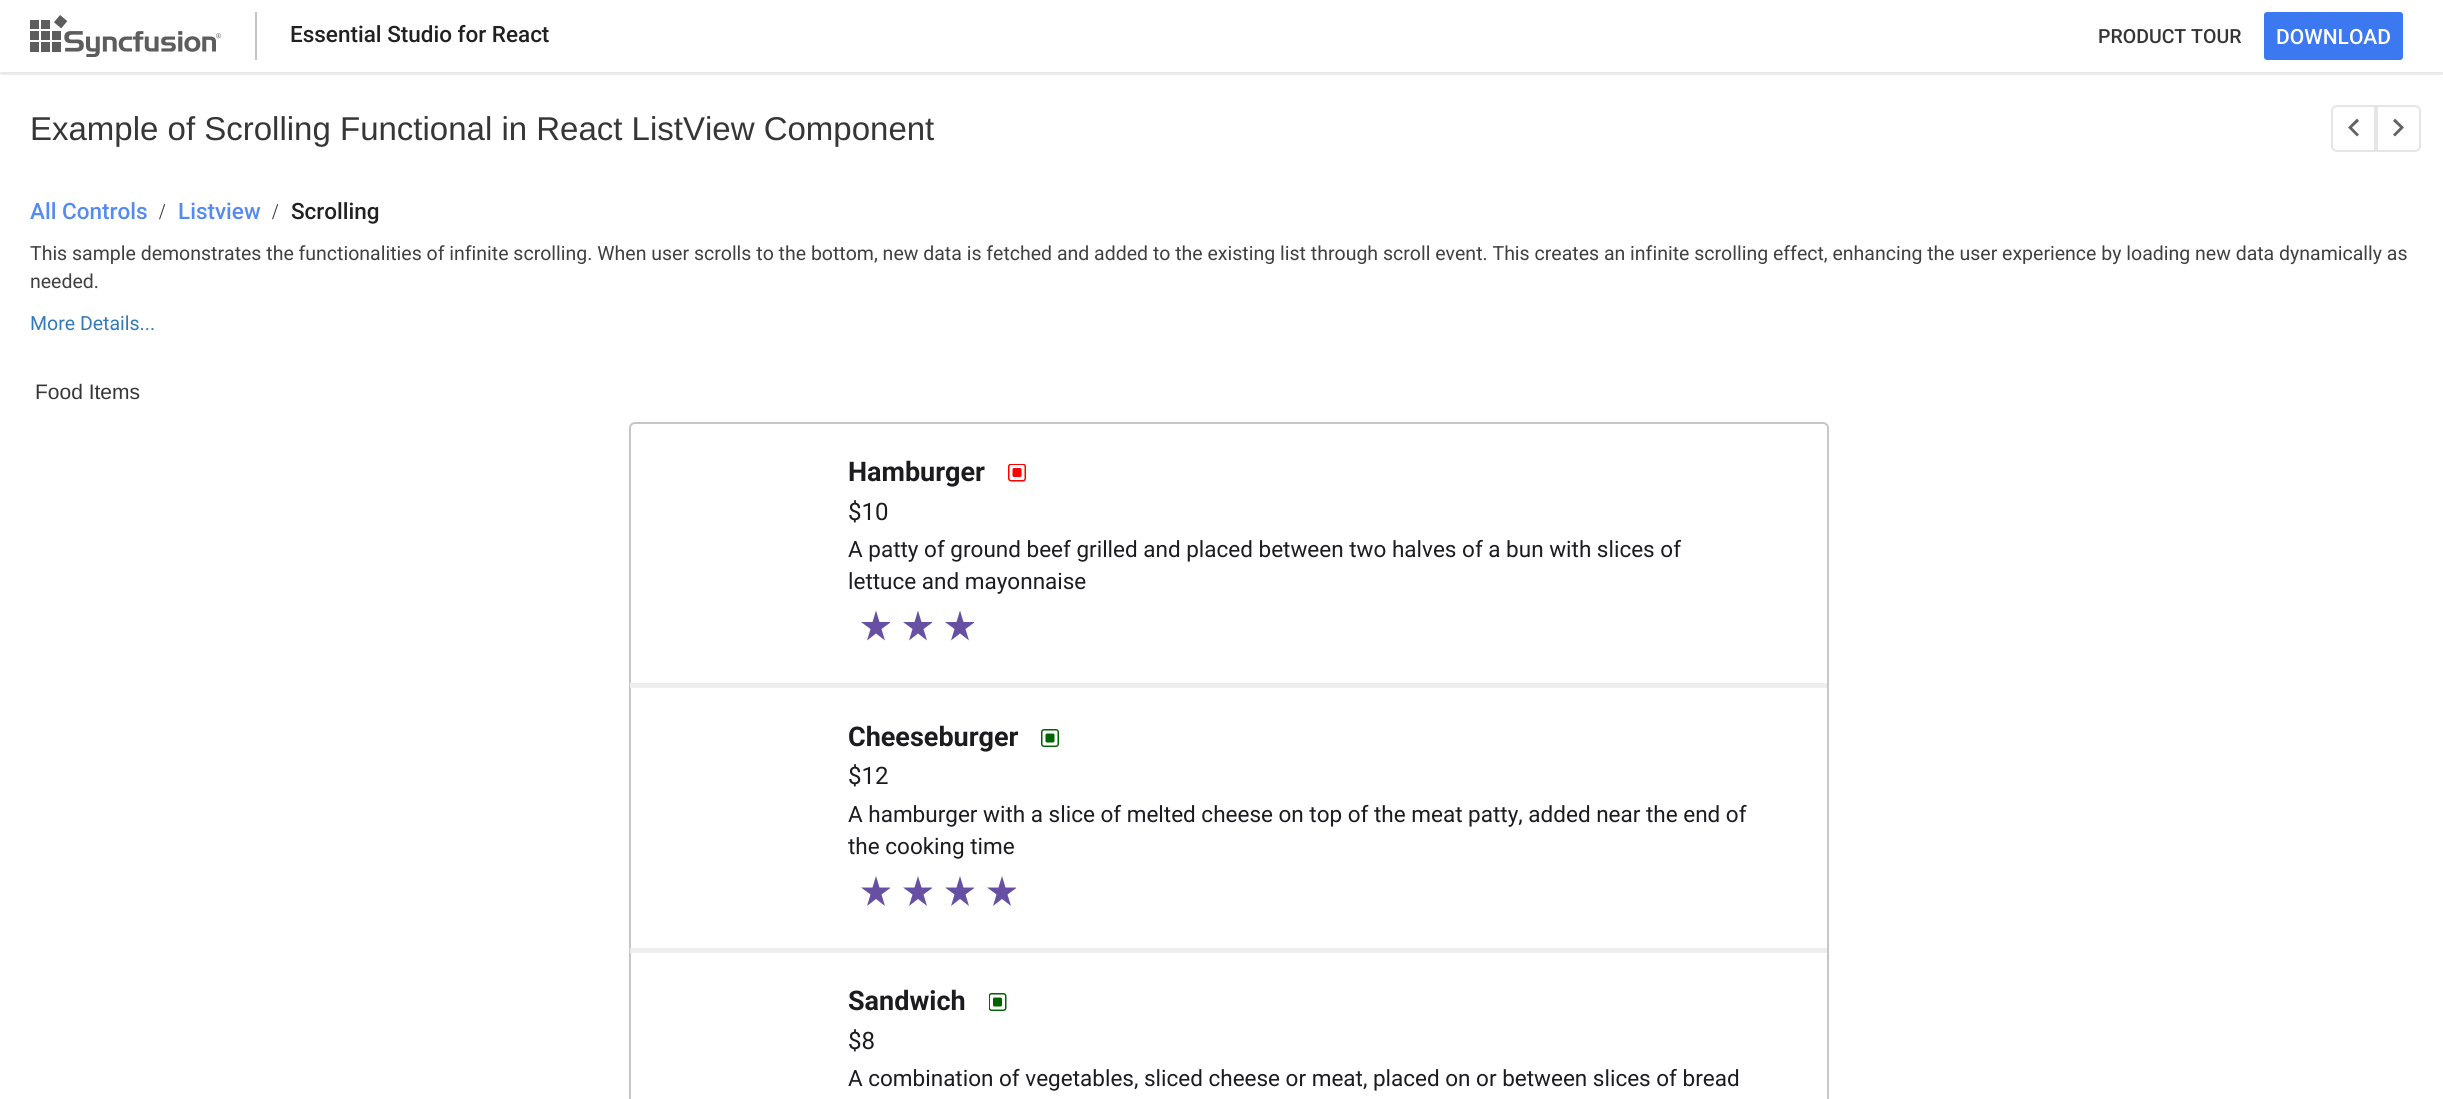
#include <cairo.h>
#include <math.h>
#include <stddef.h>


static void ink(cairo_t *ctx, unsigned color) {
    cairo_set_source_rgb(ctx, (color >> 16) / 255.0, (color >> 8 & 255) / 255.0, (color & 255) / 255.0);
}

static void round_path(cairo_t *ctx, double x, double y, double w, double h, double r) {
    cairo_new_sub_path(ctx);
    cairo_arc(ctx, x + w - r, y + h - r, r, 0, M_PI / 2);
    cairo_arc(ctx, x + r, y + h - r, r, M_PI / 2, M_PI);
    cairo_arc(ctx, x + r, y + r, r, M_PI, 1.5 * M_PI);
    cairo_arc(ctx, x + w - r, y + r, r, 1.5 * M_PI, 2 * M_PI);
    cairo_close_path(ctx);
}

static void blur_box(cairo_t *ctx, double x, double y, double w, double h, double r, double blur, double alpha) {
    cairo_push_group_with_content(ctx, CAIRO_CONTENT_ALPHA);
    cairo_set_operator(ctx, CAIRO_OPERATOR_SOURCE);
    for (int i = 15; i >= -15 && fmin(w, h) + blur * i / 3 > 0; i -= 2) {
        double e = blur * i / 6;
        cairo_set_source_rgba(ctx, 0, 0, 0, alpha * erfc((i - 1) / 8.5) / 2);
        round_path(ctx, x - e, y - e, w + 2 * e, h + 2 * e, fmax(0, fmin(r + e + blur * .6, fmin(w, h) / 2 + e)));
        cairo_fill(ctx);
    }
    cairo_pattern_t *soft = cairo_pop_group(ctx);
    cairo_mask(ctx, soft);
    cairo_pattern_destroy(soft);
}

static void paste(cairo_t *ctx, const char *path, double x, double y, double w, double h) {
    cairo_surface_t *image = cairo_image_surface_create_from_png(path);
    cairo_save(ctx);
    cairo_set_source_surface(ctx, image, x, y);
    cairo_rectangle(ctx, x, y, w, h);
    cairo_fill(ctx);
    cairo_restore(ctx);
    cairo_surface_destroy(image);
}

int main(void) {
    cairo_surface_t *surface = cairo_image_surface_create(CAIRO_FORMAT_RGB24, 2443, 1099);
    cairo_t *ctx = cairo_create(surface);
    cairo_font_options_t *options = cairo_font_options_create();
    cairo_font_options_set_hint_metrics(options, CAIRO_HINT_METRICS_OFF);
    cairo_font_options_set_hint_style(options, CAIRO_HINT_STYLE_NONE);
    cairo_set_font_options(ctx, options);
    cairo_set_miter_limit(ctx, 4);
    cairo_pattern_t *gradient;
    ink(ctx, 0xFFFFFF);
    cairo_paint(ctx);
    cairo_save(ctx);
    cairo_rectangle(ctx, 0, 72, 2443, 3);
    cairo_clip(ctx);
    ink(ctx, 0x000000);
    blur_box(ctx, 0, 3, 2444, 72, 0, 3, 0.12);
    cairo_restore(ctx);
    paste(ctx, "media/1.png", 30, 15, 191, 42);
    ink(ctx, 0xC4C4C4);
    cairo_rectangle(ctx, 255, 12, 2, 48);
    cairo_fill(ctx);
    cairo_select_font_face(ctx, "Roboto Medium", CAIRO_FONT_SLANT_NORMAL, CAIRO_FONT_WEIGHT_NORMAL);
    cairo_set_font_size(ctx, 22.5);
    ink(ctx, 0x212121);
    cairo_move_to(ctx, 290, 42);
    cairo_show_text(ctx, "Essential Studio for React");
    cairo_set_font_size(ctx, 19.5);
    ink(ctx, 0x363636);
    cairo_move_to(ctx, 2098, 43);
    cairo_show_text(ctx, "PRODUCT TOUR");
    ink(ctx, 0x3C78EF);
    round_path(ctx, 2264, 12, 139, 48, 3);
    cairo_fill(ctx);
    cairo_set_font_size(ctx, 21);
    ink(ctx, 0xFFFFFF);
    cairo_move_to(ctx, 2276, 44);
    cairo_show_text(ctx, "DOWNLOAD");
    cairo_rectangle(ctx, 0, 75, 2443, 4);
    cairo_fill(ctx);
    cairo_select_font_face(ctx, "Liberation Sans", CAIRO_FONT_SLANT_NORMAL, CAIRO_FONT_WEIGHT_NORMAL);
    cairo_set_font_size(ctx, 33);
    ink(ctx, 0x363636);
    cairo_move_to(ctx, 30, 140);
    cairo_show_text(ctx, "Example of Scrolling Functional in React ListView Component");
    cairo_new_path(ctx);
    cairo_move_to(ctx, 2337, 106);
    cairo_line_to(ctx, 2375, 106);
    cairo_line_to(ctx, 2375, 151);
    cairo_line_to(ctx, 2337, 151);
    cairo_curve_to(ctx, 2334, 151, 2332, 149, 2332, 146);
    cairo_line_to(ctx, 2332, 111);
    cairo_curve_to(ctx, 2332, 108, 2334, 106, 2337, 106);
    cairo_close_path(ctx);
    ink(ctx, 0xE5E5E5);
    cairo_stroke(ctx);
    ink(ctx, 0x636363);
    cairo_new_path(ctx);
    cairo_move_to(ctx, 2359, 134.5);
    cairo_line_to(ctx, 2352, 127.5);
    cairo_line_to(ctx, 2359, 121);
    cairo_line_to(ctx, 2357, 118.5);
    cairo_line_to(ctx, 2348, 127.5);
    cairo_line_to(ctx, 2357, 136.5);
    cairo_close_path(ctx);
    cairo_fill(ctx);
    cairo_new_path(ctx);
    cairo_move_to(ctx, 2377, 106);
    cairo_line_to(ctx, 2415, 106);
    cairo_curve_to(ctx, 2418, 106, 2420, 108, 2420, 111);
    cairo_line_to(ctx, 2420, 146);
    cairo_curve_to(ctx, 2420, 149, 2418, 151, 2415, 151);
    cairo_line_to(ctx, 2377, 151);
    cairo_close_path(ctx);
    ink(ctx, 0xE5E5E5);
    cairo_stroke(ctx);
    ink(ctx, 0x636363);
    cairo_new_path(ctx);
    cairo_move_to(ctx, 2393, 134.5);
    cairo_line_to(ctx, 2400, 127.5);
    cairo_line_to(ctx, 2393, 121);
    cairo_line_to(ctx, 2395, 118.5);
    cairo_line_to(ctx, 2404, 127.5);
    cairo_line_to(ctx, 2395, 136.5);
    cairo_close_path(ctx);
    cairo_fill(ctx);
    cairo_select_font_face(ctx, "Roboto Medium", CAIRO_FONT_SLANT_NORMAL, CAIRO_FONT_WEIGHT_NORMAL);
    cairo_set_font_size(ctx, 22.5);
    ink(ctx, 0x558AF1);
    cairo_move_to(ctx, 30, 219);
    cairo_show_text(ctx, "All Controls");
    cairo_select_font_face(ctx, "Liberation Serif", CAIRO_FONT_SLANT_NORMAL, CAIRO_FONT_WEIGHT_NORMAL);
    ink(ctx, 0x363636);
    cairo_move_to(ctx, 159, 219);
    cairo_show_text(ctx, "/");
    cairo_select_font_face(ctx, "Roboto Medium", CAIRO_FONT_SLANT_NORMAL, CAIRO_FONT_WEIGHT_NORMAL);
    ink(ctx, 0x558AF1);
    cairo_move_to(ctx, 178, 219);
    cairo_show_text(ctx, "Listview");
    cairo_select_font_face(ctx, "Liberation Serif", CAIRO_FONT_SLANT_NORMAL, CAIRO_FONT_WEIGHT_NORMAL);
    ink(ctx, 0x363636);
    cairo_move_to(ctx, 272, 219);
    cairo_show_text(ctx, "/");
    cairo_select_font_face(ctx, "Roboto Medium", CAIRO_FONT_SLANT_NORMAL, CAIRO_FONT_WEIGHT_NORMAL);
    ink(ctx, 0x212121);
    cairo_move_to(ctx, 291, 219);
    cairo_show_text(ctx, "Scrolling");
    cairo_select_font_face(ctx, "Roboto", CAIRO_FONT_SLANT_NORMAL, CAIRO_FONT_WEIGHT_NORMAL);
    cairo_set_font_size(ctx, 19.5);
    ink(ctx, 0x404040);
    cairo_move_to(ctx, 30, 260);
    cairo_show_text(ctx, "This sample demonstrates the functionalities of infinite scrolling. When user scrolls to the bottom, new data is fetched and added to the existing list through scroll event. This creates an infinite scrolling effect, enhancing the user experience by loading new data dynamically as");
    cairo_move_to(ctx, 30, 288);
    cairo_show_text(ctx, "needed.");
    ink(ctx, 0x337AB7);
    cairo_move_to(ctx, 30, 330);
    cairo_show_text(ctx, "More Details...");
    cairo_select_font_face(ctx, "Liberation Sans", CAIRO_FONT_SLANT_NORMAL, CAIRO_FONT_WEIGHT_NORMAL);
    cairo_set_font_size(ctx, 21);
    ink(ctx, 0x363636);
    cairo_move_to(ctx, 35, 399);
    cairo_show_text(ctx, "Food Items");
    round_path(ctx, 630, 423, 1198, 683, 5);
    ink(ctx, 0xC4C7C5);
    cairo_stroke(ctx);
    ink(ctx, 0xEEEEEE);
    cairo_rectangle(ctx, 630, 683, 1197, 5);
    cairo_fill(ctx);
    cairo_select_font_face(ctx, "Roboto", CAIRO_FONT_SLANT_NORMAL, CAIRO_FONT_WEIGHT_BOLD);
    cairo_set_font_size(ctx, 27);
    ink(ctx, 0x1C1B1F);
    cairo_move_to(ctx, 848, 481);
    cairo_show_text(ctx, "Hamburger");
    paste(ctx, "media/2.png", 1008, 464, 18, 18);
    cairo_select_font_face(ctx, "Roboto", CAIRO_FONT_SLANT_NORMAL, CAIRO_FONT_WEIGHT_NORMAL);
    cairo_set_font_size(ctx, 24);
    cairo_move_to(ctx, 848, 520);
    cairo_show_text(ctx, "$10");
    cairo_set_font_size(ctx, 22.5);
    cairo_move_to(ctx, 848, 557);
    cairo_show_text(ctx, "A patty of ground beef grilled and placed between two halves of a bun with slices of");
    cairo_move_to(ctx, 848, 589);
    cairo_show_text(ctx, "lettuce and mayonnaise");
    gradient = cairo_pattern_create_linear(860, 626, 890, 626);
    cairo_pattern_add_color_stop_rgba(gradient, 1, 0.404, 0.314, 0.643, 1);
    cairo_pattern_add_color_stop_rgba(gradient, 1, 1, 1, 1, 1);
    cairo_set_source(ctx, gradient);
    cairo_pattern_destroy(gradient);
    cairo_new_path(ctx);
    cairo_move_to(ctx, 876, 610.5);
    cairo_line_to(ctx, 879.5, 622);
    cairo_line_to(ctx, 891, 622);
    cairo_line_to(ctx, 881.5, 629);
    cairo_line_to(ctx, 885, 640.5);
    cairo_line_to(ctx, 876, 633.5);
    cairo_line_to(ctx, 867, 640.5);
    cairo_line_to(ctx, 870.5, 629);
    cairo_line_to(ctx, 861, 622);
    cairo_line_to(ctx, 872.5, 622);
    cairo_close_path(ctx);
    cairo_fill(ctx);
    gradient = cairo_pattern_create_linear(902, 626, 932, 626);
    cairo_pattern_add_color_stop_rgba(gradient, 1, 0.404, 0.314, 0.643, 1);
    cairo_pattern_add_color_stop_rgba(gradient, 1, 1, 1, 1, 1);
    cairo_set_source(ctx, gradient);
    cairo_pattern_destroy(gradient);
    cairo_new_path(ctx);
    cairo_move_to(ctx, 918, 610.5);
    cairo_line_to(ctx, 921.5, 622);
    cairo_line_to(ctx, 933, 622);
    cairo_line_to(ctx, 923.5, 629);
    cairo_line_to(ctx, 927, 640.5);
    cairo_line_to(ctx, 918, 633.5);
    cairo_line_to(ctx, 909, 640.5);
    cairo_line_to(ctx, 912.5, 629);
    cairo_line_to(ctx, 903, 622);
    cairo_line_to(ctx, 914.5, 622);
    cairo_close_path(ctx);
    cairo_fill(ctx);
    gradient = cairo_pattern_create_linear(944, 626, 974, 626);
    cairo_pattern_add_color_stop_rgba(gradient, 1, 0.404, 0.314, 0.643, 1);
    cairo_pattern_add_color_stop_rgba(gradient, 1, 1, 1, 1, 1);
    cairo_set_source(ctx, gradient);
    cairo_pattern_destroy(gradient);
    cairo_new_path(ctx);
    cairo_move_to(ctx, 960, 610.5);
    cairo_line_to(ctx, 963.5, 622);
    cairo_line_to(ctx, 975, 622);
    cairo_line_to(ctx, 965.5, 629);
    cairo_line_to(ctx, 969, 640.5);
    cairo_line_to(ctx, 960, 633.5);
    cairo_line_to(ctx, 951, 640.5);
    cairo_line_to(ctx, 954.5, 629);
    cairo_line_to(ctx, 945, 622);
    cairo_line_to(ctx, 956.5, 622);
    cairo_close_path(ctx);
    cairo_fill(ctx);
    ink(ctx, 0xEEEEEE);
    cairo_rectangle(ctx, 630, 948, 1197, 5);
    cairo_fill(ctx);
    cairo_select_font_face(ctx, "Roboto", CAIRO_FONT_SLANT_NORMAL, CAIRO_FONT_WEIGHT_BOLD);
    cairo_set_font_size(ctx, 27);
    ink(ctx, 0x1C1B1F);
    cairo_move_to(ctx, 848, 746);
    cairo_show_text(ctx, "Cheeseburger");
    paste(ctx, "media/3.png", 1041, 729, 18, 18);
    cairo_select_font_face(ctx, "Roboto", CAIRO_FONT_SLANT_NORMAL, CAIRO_FONT_WEIGHT_NORMAL);
    cairo_set_font_size(ctx, 24);
    cairo_move_to(ctx, 848, 784);
    cairo_show_text(ctx, "$12");
    cairo_set_font_size(ctx, 22.5);
    cairo_move_to(ctx, 848, 822);
    cairo_show_text(ctx, "A hamburger with a slice of melted cheese on top of the meat patty, added near the end of");
    cairo_move_to(ctx, 848, 854);
    cairo_show_text(ctx, "the cooking time");
    gradient = cairo_pattern_create_linear(860, 890, 890, 890);
    cairo_pattern_add_color_stop_rgba(gradient, 1, 0.404, 0.314, 0.643, 1);
    cairo_pattern_add_color_stop_rgba(gradient, 1, 1, 1, 1, 1);
    cairo_set_source(ctx, gradient);
    cairo_pattern_destroy(gradient);
    cairo_new_path(ctx);
    cairo_move_to(ctx, 876, 876);
    cairo_line_to(ctx, 879.5, 887.5);
    cairo_line_to(ctx, 891, 887.5);
    cairo_line_to(ctx, 881.5, 894.5);
    cairo_line_to(ctx, 885, 906);
    cairo_line_to(ctx, 876, 899);
    cairo_line_to(ctx, 867, 906);
    cairo_line_to(ctx, 870.5, 894.5);
    cairo_line_to(ctx, 861, 887.5);
    cairo_line_to(ctx, 872.5, 887.5);
    cairo_close_path(ctx);
    cairo_fill(ctx);
    gradient = cairo_pattern_create_linear(902, 890, 932, 890);
    cairo_pattern_add_color_stop_rgba(gradient, 1, 0.404, 0.314, 0.643, 1);
    cairo_pattern_add_color_stop_rgba(gradient, 1, 1, 1, 1, 1);
    cairo_set_source(ctx, gradient);
    cairo_pattern_destroy(gradient);
    cairo_new_path(ctx);
    cairo_move_to(ctx, 918, 876);
    cairo_line_to(ctx, 921.5, 887.5);
    cairo_line_to(ctx, 933, 887.5);
    cairo_line_to(ctx, 923.5, 894.5);
    cairo_line_to(ctx, 927, 906);
    cairo_line_to(ctx, 918, 899);
    cairo_line_to(ctx, 909, 906);
    cairo_line_to(ctx, 912.5, 894.5);
    cairo_line_to(ctx, 903, 887.5);
    cairo_line_to(ctx, 914.5, 887.5);
    cairo_close_path(ctx);
    cairo_fill(ctx);
    gradient = cairo_pattern_create_linear(944, 890, 974, 890);
    cairo_pattern_add_color_stop_rgba(gradient, 1, 0.404, 0.314, 0.643, 1);
    cairo_pattern_add_color_stop_rgba(gradient, 1, 1, 1, 1, 1);
    cairo_set_source(ctx, gradient);
    cairo_pattern_destroy(gradient);
    cairo_new_path(ctx);
    cairo_move_to(ctx, 960, 876);
    cairo_line_to(ctx, 963.5, 887.5);
    cairo_line_to(ctx, 975, 887.5);
    cairo_line_to(ctx, 965.5, 894.5);
    cairo_line_to(ctx, 969, 906);
    cairo_line_to(ctx, 960, 899);
    cairo_line_to(ctx, 951, 906);
    cairo_line_to(ctx, 954.5, 894.5);
    cairo_line_to(ctx, 945, 887.5);
    cairo_line_to(ctx, 956.5, 887.5);
    cairo_close_path(ctx);
    cairo_fill(ctx);
    gradient = cairo_pattern_create_linear(986, 890, 1016, 890);
    cairo_pattern_add_color_stop_rgba(gradient, 1, 0.404, 0.314, 0.643, 1);
    cairo_pattern_add_color_stop_rgba(gradient, 1, 1, 1, 1, 1);
    cairo_set_source(ctx, gradient);
    cairo_pattern_destroy(gradient);
    cairo_new_path(ctx);
    cairo_move_to(ctx, 1002, 876);
    cairo_line_to(ctx, 1005.5, 887.5);
    cairo_line_to(ctx, 1017, 887.5);
    cairo_line_to(ctx, 1007.5, 894.5);
    cairo_line_to(ctx, 1011, 906);
    cairo_line_to(ctx, 1002, 899);
    cairo_line_to(ctx, 993, 906);
    cairo_line_to(ctx, 996.5, 894.5);
    cairo_line_to(ctx, 987, 887.5);
    cairo_line_to(ctx, 998.5, 887.5);
    cairo_close_path(ctx);
    cairo_fill(ctx);
    cairo_select_font_face(ctx, "Roboto", CAIRO_FONT_SLANT_NORMAL, CAIRO_FONT_WEIGHT_BOLD);
    cairo_set_font_size(ctx, 27);
    ink(ctx, 0x1C1B1F);
    cairo_move_to(ctx, 848, 1010);
    cairo_show_text(ctx, "Sandwich");
    paste(ctx, "media/4.png", 989, 993, 18, 18);
    cairo_select_font_face(ctx, "Roboto", CAIRO_FONT_SLANT_NORMAL, CAIRO_FONT_WEIGHT_NORMAL);
    cairo_set_font_size(ctx, 24);
    cairo_move_to(ctx, 848, 1049);
    cairo_show_text(ctx, "$8");
    cairo_set_font_size(ctx, 22.5);
    cairo_move_to(ctx, 848, 1086);
    cairo_show_text(ctx, "A combination of vegetables, sliced cheese or meat, placed on or between slices of bread");
    cairo_surface_write_to_png(surface, "image.png");
    cairo_font_options_destroy(options);
    cairo_destroy(ctx);
    cairo_surface_destroy(surface);
    return 0;
}
